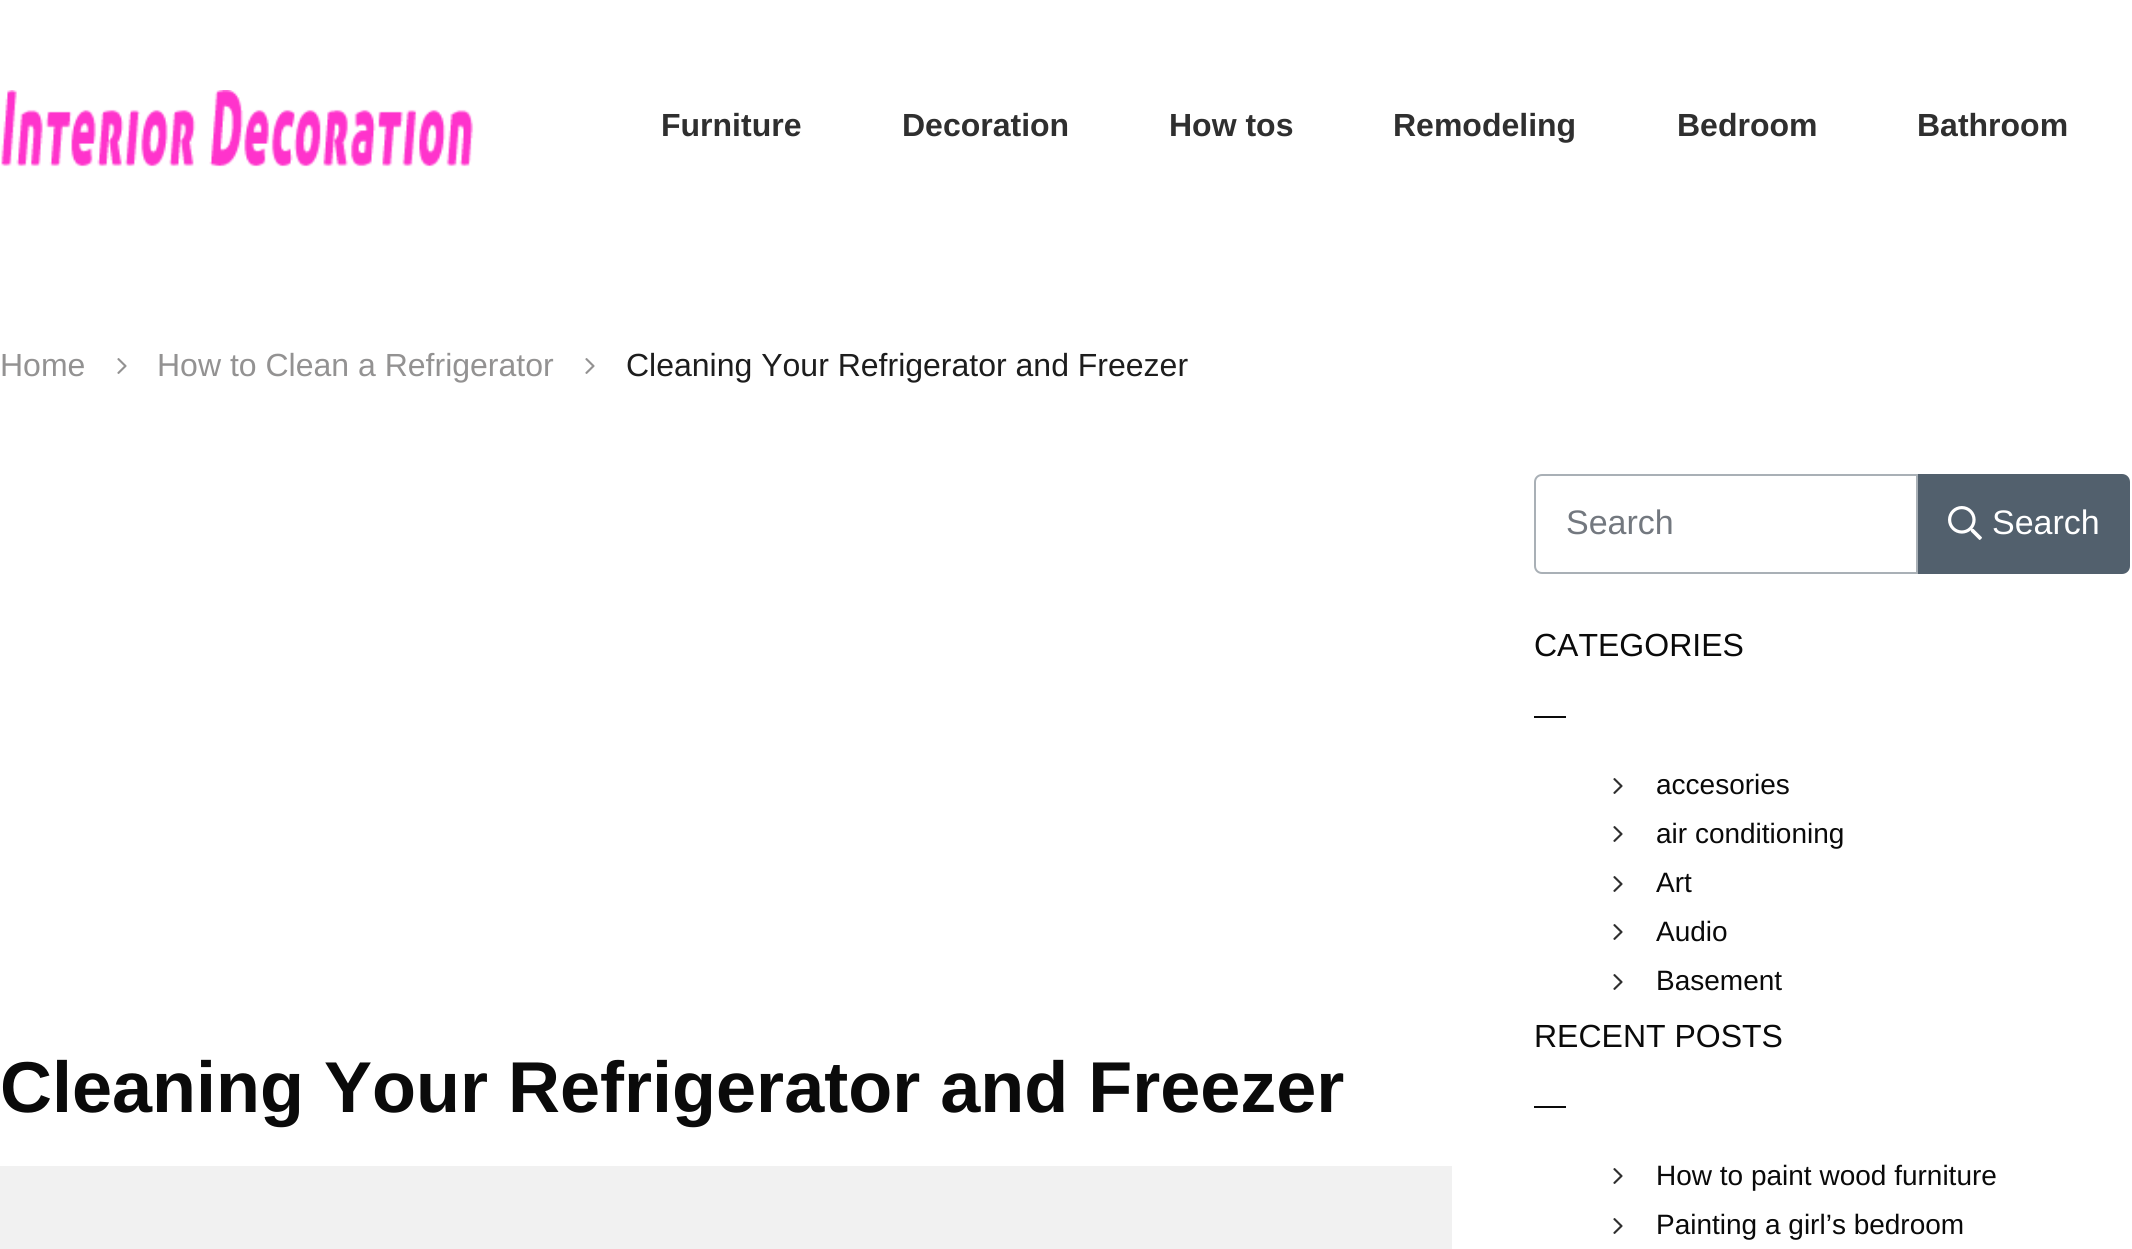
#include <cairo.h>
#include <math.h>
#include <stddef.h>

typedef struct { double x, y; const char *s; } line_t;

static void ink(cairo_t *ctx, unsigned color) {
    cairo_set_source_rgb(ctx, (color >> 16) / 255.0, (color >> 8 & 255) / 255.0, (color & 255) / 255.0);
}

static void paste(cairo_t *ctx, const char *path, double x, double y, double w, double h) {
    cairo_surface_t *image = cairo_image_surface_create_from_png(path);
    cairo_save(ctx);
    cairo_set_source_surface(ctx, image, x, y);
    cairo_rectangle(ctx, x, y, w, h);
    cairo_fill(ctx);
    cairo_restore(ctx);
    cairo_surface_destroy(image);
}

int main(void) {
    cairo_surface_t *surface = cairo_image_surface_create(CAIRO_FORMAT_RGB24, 2132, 1249);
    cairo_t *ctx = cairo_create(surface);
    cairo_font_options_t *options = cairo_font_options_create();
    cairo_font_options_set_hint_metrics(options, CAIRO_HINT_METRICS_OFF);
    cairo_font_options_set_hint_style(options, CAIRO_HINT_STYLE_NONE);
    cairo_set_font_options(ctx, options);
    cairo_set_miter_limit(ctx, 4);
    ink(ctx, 0xFFFFFF);
    cairo_paint(ctx);
    paste(ctx, "media/1.png", 1, 90, 473, 77);
    cairo_select_font_face(ctx, "Liberation Sans", CAIRO_FONT_SLANT_NORMAL, CAIRO_FONT_WEIGHT_BOLD);
    cairo_set_font_size(ctx, 32);
    ink(ctx, 0x2F2F2F);
    {
        static const line_t items[] = {
            {661, 136, "Furniture"},
            {902, 136, "Decoration"},
            {1169, 136, "How tos"},
            {1393, 136, "Remodeling"},
            {1677, 136, "Bedroom"},
            {1917, 136, "Bathroom"},
        };
        for (size_t i = 0; i < sizeof items / sizeof *items; i++) {
            cairo_move_to(ctx, items[i].x, items[i].y);
            cairo_show_text(ctx, items[i].s);
        }
    }
    cairo_select_font_face(ctx, "Liberation Sans", CAIRO_FONT_SLANT_NORMAL, CAIRO_FONT_WEIGHT_NORMAL);
    ink(ctx, 0x939292);
    cairo_move_to(ctx, 0, 376);
    cairo_show_text(ctx, "Home");
    paste(ctx, "media/2.png", 117, 358, 10, 16);
    cairo_move_to(ctx, 157, 376);
    cairo_show_text(ctx, "How to Clean a Refrigerator");
    paste(ctx, "media/2.png", 585, 358, 10, 16);
    ink(ctx, 0x1D1D1D);
    cairo_move_to(ctx, 626, 376);
    cairo_show_text(ctx, "Cleaning Your Refrigerator and Freezer");
    cairo_select_font_face(ctx, "Liberation Sans", CAIRO_FONT_SLANT_NORMAL, CAIRO_FONT_WEIGHT_BOLD);
    cairo_set_font_size(ctx, 72);
    ink(ctx, 0x0A0A0A);
    cairo_move_to(ctx, 0, 1112);
    cairo_show_text(ctx, "Cleaning Your Refrigerator and Freezer");
    ink(ctx, 0xF1F1F1);
    cairo_rectangle(ctx, 0, 1166, 1452, 83);
    cairo_fill(ctx);
    cairo_new_path(ctx);
    cairo_move_to(ctx, 1542, 475);
    cairo_line_to(ctx, 1917, 475);
    cairo_line_to(ctx, 1917, 573);
    cairo_line_to(ctx, 1542, 573);
    cairo_curve_to(ctx, 1538, 573, 1535, 570, 1535, 566);
    cairo_line_to(ctx, 1535, 482);
    cairo_curve_to(ctx, 1535, 478, 1538, 475, 1542, 475);
    cairo_close_path(ctx);
    ink(ctx, 0xA9B0B6);
    cairo_stroke(ctx);
    cairo_select_font_face(ctx, "Liberation Sans", CAIRO_FONT_SLANT_NORMAL, CAIRO_FONT_WEIGHT_NORMAL);
    cairo_set_font_size(ctx, 34);
    ink(ctx, 0x73787F);
    cairo_move_to(ctx, 1566, 534);
    cairo_show_text(ctx, "Search");
    ink(ctx, 0x52606D);
    cairo_new_path(ctx);
    cairo_move_to(ctx, 1918, 474);
    cairo_line_to(ctx, 2122, 474);
    cairo_curve_to(ctx, 2126.5, 474, 2130, 477.5, 2130, 482);
    cairo_line_to(ctx, 2130, 566);
    cairo_curve_to(ctx, 2130, 570.5, 2126.5, 574, 2122, 574);
    cairo_line_to(ctx, 1918, 574);
    cairo_close_path(ctx);
    cairo_fill(ctx);
    paste(ctx, "media/3.png", 1948, 506, 34, 34);
    ink(ctx, 0xFFFFFF);
    cairo_move_to(ctx, 1992, 534);
    cairo_show_text(ctx, "Search");
    cairo_set_font_size(ctx, 32);
    ink(ctx, 0x0A0A0A);
    cairo_move_to(ctx, 1534, 656);
    cairo_show_text(ctx, "CATEGORIES");
    cairo_rectangle(ctx, 1534, 716, 32, 2);
    cairo_fill(ctx);
    paste(ctx, "media/4.png", 1613, 778, 10, 16);
    cairo_set_font_size(ctx, 28);
    cairo_move_to(ctx, 1656, 794);
    cairo_show_text(ctx, "accesories");
    paste(ctx, "media/4.png", 1613, 826, 10, 16);
    cairo_move_to(ctx, 1656, 843);
    cairo_show_text(ctx, "air conditioning");
    paste(ctx, "media/4.png", 1613, 876, 10, 16);
    cairo_move_to(ctx, 1656, 892);
    cairo_show_text(ctx, "Art");
    paste(ctx, "media/4.png", 1613, 924, 10, 16);
    cairo_move_to(ctx, 1656, 941);
    cairo_show_text(ctx, "Audio");
    paste(ctx, "media/4.png", 1613, 974, 10, 16);
    cairo_move_to(ctx, 1656, 990);
    cairo_show_text(ctx, "Basement");
    cairo_set_font_size(ctx, 32);
    cairo_move_to(ctx, 1534, 1047);
    cairo_show_text(ctx, "RECENT POSTS");
    cairo_rectangle(ctx, 1534, 1106, 32, 2);
    cairo_fill(ctx);
    paste(ctx, "media/4.png", 1613, 1168, 10, 16);
    cairo_set_font_size(ctx, 28);
    cairo_move_to(ctx, 1656, 1185);
    cairo_show_text(ctx, "How to paint wood furniture");
    paste(ctx, "media/4.png", 1613, 1218, 10, 16);
    cairo_move_to(ctx, 1656, 1234);
    cairo_show_text(ctx, "Painting a girl’s bedroom");
    cairo_surface_write_to_png(surface, "image.png");
    cairo_font_options_destroy(options);
    cairo_destroy(ctx);
    cairo_surface_destroy(surface);
    return 0;
}
